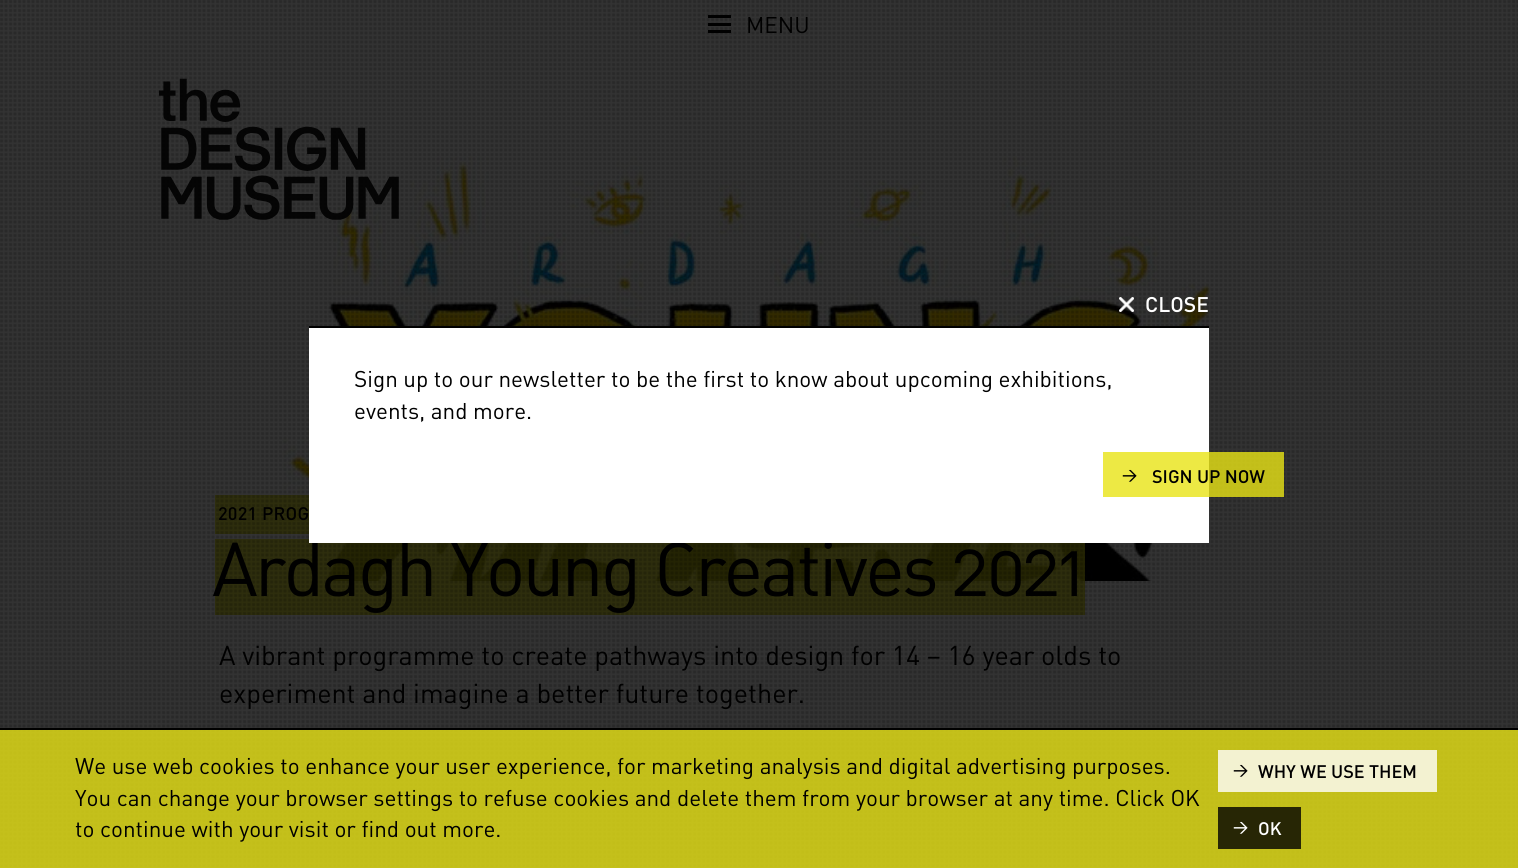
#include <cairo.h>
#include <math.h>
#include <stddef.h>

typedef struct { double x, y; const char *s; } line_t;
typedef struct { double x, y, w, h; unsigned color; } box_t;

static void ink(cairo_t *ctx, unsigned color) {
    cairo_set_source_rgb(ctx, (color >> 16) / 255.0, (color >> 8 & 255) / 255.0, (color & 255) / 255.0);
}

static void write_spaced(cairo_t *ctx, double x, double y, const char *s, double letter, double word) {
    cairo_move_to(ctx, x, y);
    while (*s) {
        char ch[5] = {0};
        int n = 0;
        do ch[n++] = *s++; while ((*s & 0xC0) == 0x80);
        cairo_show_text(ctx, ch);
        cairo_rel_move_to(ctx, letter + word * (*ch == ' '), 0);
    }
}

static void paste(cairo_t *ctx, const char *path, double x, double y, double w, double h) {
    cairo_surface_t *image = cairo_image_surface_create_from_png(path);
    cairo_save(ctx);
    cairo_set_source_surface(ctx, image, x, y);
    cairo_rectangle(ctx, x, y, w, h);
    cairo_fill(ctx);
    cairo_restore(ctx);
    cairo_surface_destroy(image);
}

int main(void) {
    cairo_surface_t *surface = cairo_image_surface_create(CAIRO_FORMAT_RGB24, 1518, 868);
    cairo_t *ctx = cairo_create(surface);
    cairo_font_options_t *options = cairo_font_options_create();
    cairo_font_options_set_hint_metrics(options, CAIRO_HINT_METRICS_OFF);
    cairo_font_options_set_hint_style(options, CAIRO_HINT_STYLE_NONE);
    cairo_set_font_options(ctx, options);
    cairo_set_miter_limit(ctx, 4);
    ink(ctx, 0x333333);
    cairo_paint(ctx);
    {
        static const box_t items[] = {
            {708, 15, 23, 3, 0x000000},
            {708, 23, 23, 3, 0x000000},
            {708, 30, 23, 3, 0x000000},
        };
        for (size_t i = 0; i < sizeof items / sizeof *items; i++) {
            ink(ctx, items[i].color);
            cairo_rectangle(ctx, items[i].x, items[i].y, items[i].w, items[i].h);
            cairo_fill(ctx);
        }
    }
    cairo_select_font_face(ctx, "DIN", CAIRO_FONT_SLANT_NORMAL, CAIRO_FONT_WEIGHT_NORMAL);
    cairo_set_font_size(ctx, 22.5);
    cairo_move_to(ctx, 746, 33);
    cairo_show_text(ctx, "MENU");
    paste(ctx, "media/3.png", 282, 156, 929, 425);
    paste(ctx, "media/4.png", 159, 78, 240, 142);
    ink(ctx, 0x2F2F0E);
    cairo_rectangle(ctx, 215, 495, 3, 39);
    cairo_fill(ctx);
    cairo_set_source_rgba(ctx, 0.18, 0.176, 0.016, 0.8);
    cairo_rectangle(ctx, 218, 495, 91, 39);
    cairo_fill(ctx);
    cairo_select_font_face(ctx, "DIN Medium", CAIRO_FONT_SLANT_NORMAL, CAIRO_FONT_WEIGHT_NORMAL);
    cairo_set_font_size(ctx, 18);
    ink(ctx, 0x000000);
    write_spaced(ctx, 218, 520, "2021 PROG", 0.25, 0);
    cairo_set_source_rgba(ctx, 0.18, 0.176, 0.016, 0.8);
    cairo_rectangle(ctx, 215, 539, 870, 76);
    cairo_fill(ctx);
    cairo_select_font_face(ctx, "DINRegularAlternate", CAIRO_FONT_SLANT_NORMAL, CAIRO_FONT_WEIGHT_NORMAL);
    cairo_set_font_size(ctx, 75);
    ink(ctx, 0x000000);
    write_spaced(ctx, 212, 596, "Ardagh Young Creatives 2021", -3, 0);
    cairo_select_font_face(ctx, "DIN", CAIRO_FONT_SLANT_NORMAL, CAIRO_FONT_WEIGHT_NORMAL);
    cairo_set_font_size(ctx, 27);
    cairo_move_to(ctx, 219, 665);
    cairo_show_text(ctx, "A vibrant programme to create pathways into design for 14 – 16 year olds to");
    cairo_move_to(ctx, 219, 703);
    cairo_show_text(ctx, "experiment and imagine a better future together.");
    paste(ctx, "media/1.png", 0, 0, 1518, 867);
    ink(ctx, 0xFFFFFF);
    cairo_rectangle(ctx, 309, 328, 900, 215);
    cairo_fill(ctx);
    paste(ctx, "media/2.png", 1119, 297, 15, 15);
    cairo_select_font_face(ctx, "DIN Medium", CAIRO_FONT_SLANT_NORMAL, CAIRO_FONT_WEIGHT_NORMAL);
    cairo_set_font_size(ctx, 21);
    cairo_move_to(ctx, 1145, 312);
    cairo_show_text(ctx, "CLOSE");
    ink(ctx, 0x000000);
    cairo_rectangle(ctx, 309, 326, 900, 2);
    cairo_fill(ctx);
    cairo_select_font_face(ctx, "DIN", CAIRO_FONT_SLANT_NORMAL, CAIRO_FONT_WEIGHT_NORMAL);
    cairo_set_font_size(ctx, 22.5);
    cairo_move_to(ctx, 354, 387);
    cairo_show_text(ctx, "Sign up to our newsletter to be the first to know about upcoming exhibitions,");
    cairo_move_to(ctx, 354, 419);
    cairo_show_text(ctx, "events, and more.");
    cairo_set_source_rgba(ctx, 0.91, 0.89, 0.086, 0.8);
    cairo_rectangle(ctx, 1103, 452, 181, 45);
    cairo_fill(ctx);
    cairo_select_font_face(ctx, "DIN Medium", CAIRO_FONT_SLANT_NORMAL, CAIRO_FONT_WEIGHT_NORMAL);
    cairo_set_font_size(ctx, 15);
    ink(ctx, 0x000000);
    cairo_move_to(ctx, 1122, 480);
    cairo_show_text(ctx, ">");
    cairo_set_font_size(ctx, 18);
    cairo_move_to(ctx, 1152, 483);
    cairo_show_text(ctx, "SIGN UP NOW");
    cairo_set_source_rgba(ctx, 0.91, 0.89, 0.086, 0.8);
    cairo_rectangle(ctx, 0, 730, 1518, 138);
    cairo_fill(ctx);
    ink(ctx, 0x000000);
    cairo_rectangle(ctx, 0, 728, 1518, 2);
    cairo_fill(ctx);
    cairo_select_font_face(ctx, "DIN", CAIRO_FONT_SLANT_NORMAL, CAIRO_FONT_WEIGHT_NORMAL);
    cairo_set_font_size(ctx, 22.5);
    {
        static const line_t items[] = {
            {75, 774, "We use web cookies to enhance your user experience, for marketing analysis and digital advertising purposes."},
            {75, 806, "You can change your browser settings to refuse cookies and delete them from your browser at any time. Click OK"},
            {75, 837, "to continue with your visit or find out more."},
        };
        for (size_t i = 0; i < sizeof items / sizeof *items; i++) {
            cairo_move_to(ctx, items[i].x, items[i].y);
            cairo_show_text(ctx, items[i].s);
        }
    }
    ink(ctx, 0xF3F2D1);
    cairo_rectangle(ctx, 1218, 750, 219, 42);
    cairo_fill(ctx);
    cairo_select_font_face(ctx, "DIN Medium", CAIRO_FONT_SLANT_NORMAL, CAIRO_FONT_WEIGHT_NORMAL);
    cairo_set_font_size(ctx, 15);
    ink(ctx, 0x000000);
    cairo_move_to(ctx, 1233, 775);
    cairo_show_text(ctx, ">");
    cairo_set_font_size(ctx, 18);
    cairo_move_to(ctx, 1258, 778);
    cairo_show_text(ctx, "WHY WE USE THEM");
    ink(ctx, 0x272605);
    cairo_rectangle(ctx, 1218, 807, 83, 42);
    cairo_fill(ctx);
    cairo_set_font_size(ctx, 15);
    ink(ctx, 0xFFFFFF);
    cairo_move_to(ctx, 1233, 832);
    cairo_show_text(ctx, ">");
    cairo_set_font_size(ctx, 18);
    cairo_move_to(ctx, 1258, 835);
    cairo_show_text(ctx, "OK");
    cairo_surface_write_to_png(surface, "image.png");
    cairo_font_options_destroy(options);
    cairo_destroy(ctx);
    cairo_surface_destroy(surface);
    return 0;
}
